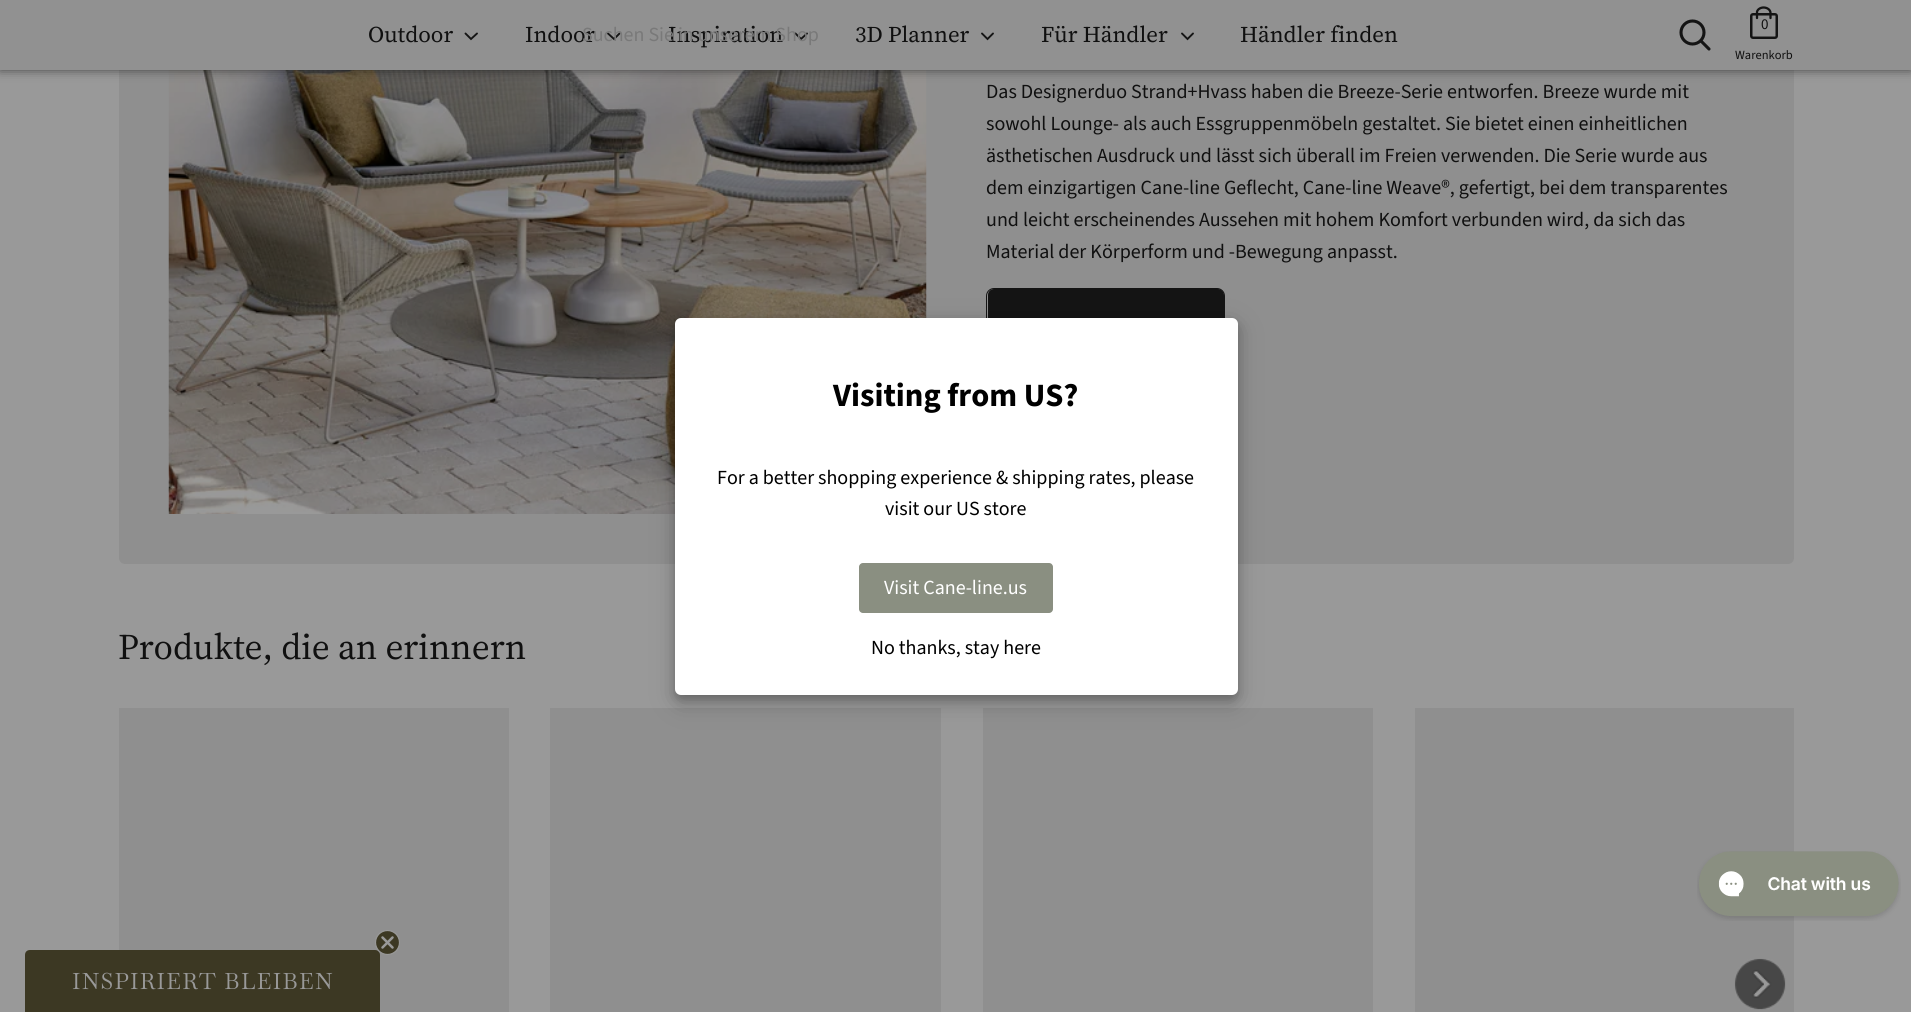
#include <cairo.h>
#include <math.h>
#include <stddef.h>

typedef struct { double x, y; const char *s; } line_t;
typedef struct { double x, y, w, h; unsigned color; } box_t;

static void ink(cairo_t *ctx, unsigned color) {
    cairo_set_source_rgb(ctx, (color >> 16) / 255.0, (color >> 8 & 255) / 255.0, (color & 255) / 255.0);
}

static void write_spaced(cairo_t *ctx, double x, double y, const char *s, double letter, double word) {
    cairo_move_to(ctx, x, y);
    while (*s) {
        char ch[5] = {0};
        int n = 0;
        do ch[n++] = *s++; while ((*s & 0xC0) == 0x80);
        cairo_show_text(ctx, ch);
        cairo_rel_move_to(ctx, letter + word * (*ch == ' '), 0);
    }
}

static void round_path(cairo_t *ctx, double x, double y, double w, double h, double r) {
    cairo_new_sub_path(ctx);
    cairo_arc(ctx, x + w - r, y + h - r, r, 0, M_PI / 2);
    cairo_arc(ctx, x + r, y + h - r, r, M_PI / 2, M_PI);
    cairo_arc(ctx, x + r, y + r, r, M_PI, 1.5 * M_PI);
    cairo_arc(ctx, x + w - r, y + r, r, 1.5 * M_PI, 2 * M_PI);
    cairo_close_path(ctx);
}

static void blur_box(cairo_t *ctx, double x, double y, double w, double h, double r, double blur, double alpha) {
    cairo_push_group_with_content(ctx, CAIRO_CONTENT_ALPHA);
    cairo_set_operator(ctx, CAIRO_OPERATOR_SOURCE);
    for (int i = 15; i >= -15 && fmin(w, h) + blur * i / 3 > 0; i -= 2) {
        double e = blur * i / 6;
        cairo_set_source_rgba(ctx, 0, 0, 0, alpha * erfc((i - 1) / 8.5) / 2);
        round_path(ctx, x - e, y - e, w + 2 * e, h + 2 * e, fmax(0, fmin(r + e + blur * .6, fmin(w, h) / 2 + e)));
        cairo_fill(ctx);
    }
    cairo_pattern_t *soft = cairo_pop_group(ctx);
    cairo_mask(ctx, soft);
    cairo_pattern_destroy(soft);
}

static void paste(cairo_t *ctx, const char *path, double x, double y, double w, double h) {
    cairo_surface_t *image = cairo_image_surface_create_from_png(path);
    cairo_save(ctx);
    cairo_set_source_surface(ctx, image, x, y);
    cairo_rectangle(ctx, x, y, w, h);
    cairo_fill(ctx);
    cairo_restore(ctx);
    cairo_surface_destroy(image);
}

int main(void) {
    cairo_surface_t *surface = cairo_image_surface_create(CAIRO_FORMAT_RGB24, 1911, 1012);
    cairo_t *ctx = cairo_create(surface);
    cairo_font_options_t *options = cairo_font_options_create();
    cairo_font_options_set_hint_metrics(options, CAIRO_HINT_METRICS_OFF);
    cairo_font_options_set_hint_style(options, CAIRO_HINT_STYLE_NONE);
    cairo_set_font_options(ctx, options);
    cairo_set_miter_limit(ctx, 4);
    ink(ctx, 0x999999);
    cairo_paint(ctx);
    ink(ctx, 0x8F8F8F);
    round_path(ctx, 119, -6, 1675, 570, 6);
    cairo_fill(ctx);
    paste(ctx, "media/1.png", 168, 70, 759, 444);
    ink(ctx, 0x000000);
    blur_box(ctx, 0, -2, 1911, 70, 0, 6, 0.75);
    ink(ctx, 0x919191);
    cairo_rectangle(ctx, 0, 0, 1911, 70);
    cairo_fill(ctx);
    cairo_select_font_face(ctx, "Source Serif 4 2", CAIRO_FONT_SLANT_NORMAL, CAIRO_FONT_WEIGHT_NORMAL);
    cairo_set_font_size(ctx, 22.5);
    ink(ctx, 0x101010);
    cairo_move_to(ctx, 525, 42);
    cairo_show_text(ctx, "Indoor");
    cairo_new_path(ctx);
    cairo_move_to(ctx, 608, 33.5);
    cairo_line_to(ctx, 614, 39);
    cairo_line_to(ctx, 619.5, 33.5);
    ink(ctx, 0x141414);
    cairo_set_line_width(ctx, 1.9);
    cairo_set_line_cap(ctx, CAIRO_LINE_CAP_ROUND);
    cairo_stroke(ctx);
    ink(ctx, 0x101010);
    cairo_move_to(ctx, 668, 42);
    cairo_show_text(ctx, "Inspiration");
    cairo_new_path(ctx);
    cairo_move_to(ctx, 795.5, 33.5);
    cairo_line_to(ctx, 801, 39);
    cairo_line_to(ctx, 807, 33.5);
    ink(ctx, 0x141414);
    cairo_stroke(ctx);
    cairo_select_font_face(ctx, "Source Sans Pro", CAIRO_FONT_SLANT_NORMAL, CAIRO_FONT_WEIGHT_NORMAL);
    cairo_set_font_size(ctx, 20);
    ink(ctx, 0x797979);
    cairo_move_to(ctx, 582, 41);
    cairo_show_text(ctx, "Suchen Sie in unserem Shop");
    cairo_new_path(ctx);
    cairo_arc(ctx, 1692.5, 32.5, 11.5, 0, 2 * M_PI);
    ink(ctx, 0x141414);
    cairo_set_line_width(ctx, 3.1);
    cairo_set_line_cap(ctx, CAIRO_LINE_CAP_BUTT);
    cairo_stroke(ctx);
    cairo_new_path(ctx);
    cairo_move_to(ctx, 1709, 49);
    cairo_line_to(ctx, 1701, 41);
    cairo_set_line_cap(ctx, CAIRO_LINE_CAP_ROUND);
    cairo_stroke(ctx);
    round_path(ctx, 1751.25, 14.25, 25.5, 23.5, 1.75);
    cairo_set_line_width(ctx, 2.5);
    cairo_set_line_cap(ctx, CAIRO_LINE_CAP_BUTT);
    cairo_stroke(ctx);
    cairo_new_path(ctx);
    cairo_move_to(ctx, 1757, 18);
    cairo_line_to(ctx, 1757, 13);
    cairo_curve_to(ctx, 1756.5, 10, 1760, 7.5, 1763.5, 7.5);
    cairo_curve_to(ctx, 1767.5, 7.5, 1770.5, 10, 1770.5, 13);
    cairo_line_to(ctx, 1770.5, 18);
    cairo_set_line_width(ctx, 2.3);
    cairo_set_line_cap(ctx, CAIRO_LINE_CAP_ROUND);
    cairo_stroke(ctx);
    cairo_set_font_size(ctx, 15);
    ink(ctx, 0x101010);
    cairo_move_to(ctx, 1761, 29);
    cairo_show_text(ctx, "0");
    cairo_set_font_size(ctx, 12.5);
    cairo_move_to(ctx, 1735, 59);
    cairo_show_text(ctx, "Warenkorb");
    cairo_select_font_face(ctx, "Source Serif 4 2", CAIRO_FONT_SLANT_NORMAL, CAIRO_FONT_WEIGHT_NORMAL);
    cairo_set_font_size(ctx, 22.5);
    cairo_move_to(ctx, 368, 42);
    cairo_show_text(ctx, "Outdoor");
    cairo_new_path(ctx);
    cairo_move_to(ctx, 465.5, 33.5);
    cairo_line_to(ctx, 471, 39);
    cairo_line_to(ctx, 477, 33.5);
    ink(ctx, 0x141414);
    cairo_set_line_width(ctx, 1.9);
    cairo_stroke(ctx);
    ink(ctx, 0x101010);
    cairo_move_to(ctx, 855, 42);
    cairo_show_text(ctx, "3D Planner");
    cairo_new_path(ctx);
    cairo_move_to(ctx, 982, 33.5);
    cairo_line_to(ctx, 987.5, 39);
    cairo_line_to(ctx, 993, 33.5);
    ink(ctx, 0x141414);
    cairo_stroke(ctx);
    ink(ctx, 0x101010);
    cairo_move_to(ctx, 1041, 42);
    cairo_show_text(ctx, "Für Händler");
    cairo_new_path(ctx);
    cairo_move_to(ctx, 1182, 33.5);
    cairo_line_to(ctx, 1187.5, 39);
    cairo_line_to(ctx, 1193, 33.5);
    ink(ctx, 0x141414);
    cairo_stroke(ctx);
    ink(ctx, 0x101010);
    cairo_move_to(ctx, 1240, 42);
    cairo_show_text(ctx, "Händler finden");
    cairo_select_font_face(ctx, "Source Sans Pro", CAIRO_FONT_SLANT_NORMAL, CAIRO_FONT_WEIGHT_NORMAL);
    cairo_set_font_size(ctx, 20);
    {
        static const line_t items[] = {
            {986, 98, "Das Designerduo Strand+Hvass haben die Breeze-Serie entworfen. Breeze wurde mit"},
            {986, 130, "sowohl Lounge- als auch Essgruppenmöbeln gestaltet. Sie bietet einen einheitlichen"},
            {986, 162, "ästhetischen Ausdruck und lässt sich überall im Freien verwenden. Die Serie wurde aus"},
            {986, 194, "dem einzigartigen Cane-line Geflecht, Cane-line Weave®, gefertigt, bei dem transparentes"},
            {986, 226, "und leicht erscheinendes Aussehen mit hohem Komfort verbunden wird, da sich das"},
            {986, 258, "Material der Körperform und -Bewegung anpasst."},
        };
        for (size_t i = 0; i < sizeof items / sizeof *items; i++) {
            cairo_move_to(ctx, items[i].x, items[i].y);
            cairo_show_text(ctx, items[i].s);
        }
    }
    round_path(ctx, 986.5, 288.5, 238, 57, 7.5);
    ink(ctx, 0x141414);
    cairo_set_line_width(ctx, 1);
    cairo_set_line_cap(ctx, CAIRO_LINE_CAP_BUTT);
    cairo_stroke(ctx);
    round_path(ctx, 988, 289, 236, 56, 6);
    cairo_fill(ctx);
    cairo_select_font_face(ctx, "Source Serif 4", CAIRO_FONT_SLANT_NORMAL, CAIRO_FONT_WEIGHT_NORMAL);
    cairo_set_font_size(ctx, 36);
    ink(ctx, 0x101010);
    cairo_move_to(ctx, 118, 659);
    cairo_show_text(ctx, "Produkte, die an erinnern");
    {
        static const box_t items[] = {
            {119, 708, 390, 304, 0x8F8F8F},
            {550, 708, 391, 304, 0x8F8F8F},
            {983, 708, 390, 304, 0x8F8F8F},
            {1415, 708, 379, 304, 0x8F8F8F},
        };
        for (size_t i = 0; i < sizeof items / sizeof *items; i++) {
            ink(ctx, items[i].color);
            cairo_rectangle(ctx, items[i].x, items[i].y, items[i].w, items[i].h);
            cairo_fill(ctx);
        }
    }
    paste(ctx, "media/2.png", 1734, 958, 52, 52);
    ink(ctx, 0x000000);
    blur_box(ctx, 675, 325, 563, 378, 6, 12.5, 0.19);
    blur_box(ctx, 675, 323, 563, 377, 6, 5, 0.2);
    ink(ctx, 0xFFFFFF);
    round_path(ctx, 675, 318, 563, 377, 6);
    cairo_fill(ctx);
    cairo_select_font_face(ctx, "Source Sans Pro", CAIRO_FONT_SLANT_NORMAL, CAIRO_FONT_WEIGHT_BOLD);
    cairo_set_font_size(ctx, 32.5);
    ink(ctx, 0x000000);
    cairo_move_to(ctx, 833, 406);
    cairo_show_text(ctx, "Visiting from US?");
    cairo_select_font_face(ctx, "Source Sans Pro", CAIRO_FONT_SLANT_NORMAL, CAIRO_FONT_WEIGHT_NORMAL);
    cairo_set_font_size(ctx, 20);
    cairo_move_to(ctx, 717, 484);
    cairo_show_text(ctx, "For a better shopping experience & shipping rates, please");
    cairo_move_to(ctx, 885, 515);
    cairo_show_text(ctx, "visit our US store");
    ink(ctx, 0x8A8F81);
    round_path(ctx, 859, 563, 194, 50, 4);
    cairo_fill(ctx);
    ink(ctx, 0xFFFFFF);
    cairo_move_to(ctx, 884, 594);
    cairo_show_text(ctx, "Visit Cane-line.us");
    ink(ctx, 0x000000);
    cairo_move_to(ctx, 871, 654);
    cairo_show_text(ctx, "No thanks, stay here");
    paste(ctx, "media/3.png", 1697, 851, 204, 70);
    ink(ctx, 0x3C3823);
    cairo_new_path(ctx);
    cairo_move_to(ctx, 30, 950);
    cairo_line_to(ctx, 375, 950);
    cairo_curve_to(ctx, 378, 950, 380, 952, 380, 955);
    cairo_line_to(ctx, 380, 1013);
    cairo_line_to(ctx, 25, 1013);
    cairo_line_to(ctx, 25, 955);
    cairo_curve_to(ctx, 25, 952, 27, 950, 30, 950);
    cairo_close_path(ctx);
    cairo_fill(ctx);
    cairo_arc(ctx, 387.5, 942.5, 12, 0, 2 * M_PI);
    cairo_fill(ctx);
    cairo_save(ctx);
    cairo_rectangle(ctx, 375, 930, 25, 25);
    cairo_clip(ctx);
    cairo_arc(ctx, 387.5, 942.5, 12, 0, 2 * M_PI);
    ink(ctx, 0x999999);
    cairo_set_line_width(ctx, 1.2);
    cairo_stroke(ctx);
    cairo_restore(ctx);
    cairo_new_path(ctx);
    cairo_move_to(ctx, 382.5, 937.5);
    cairo_line_to(ctx, 392.5, 947.5);
    cairo_move_to(ctx, 382.5, 947.5);
    cairo_line_to(ctx, 392.5, 937.5);
    cairo_close_path(ctx);
    ink(ctx, 0x999999);
    cairo_set_line_width(ctx, 2.5);
    cairo_set_line_cap(ctx, CAIRO_LINE_CAP_ROUND);
    cairo_set_line_join(ctx, CAIRO_LINE_JOIN_ROUND);
    cairo_stroke(ctx);
    cairo_select_font_face(ctx, "Baskervville", CAIRO_FONT_SLANT_NORMAL, CAIRO_FONT_WEIGHT_NORMAL);
    cairo_set_font_size(ctx, 22.5);
    write_spaced(ctx, 72, 989, "INSPIRIERT BLEIBEN", 1.25, 0);
    cairo_surface_write_to_png(surface, "image.png");
    cairo_font_options_destroy(options);
    cairo_destroy(ctx);
    cairo_surface_destroy(surface);
    return 0;
}
